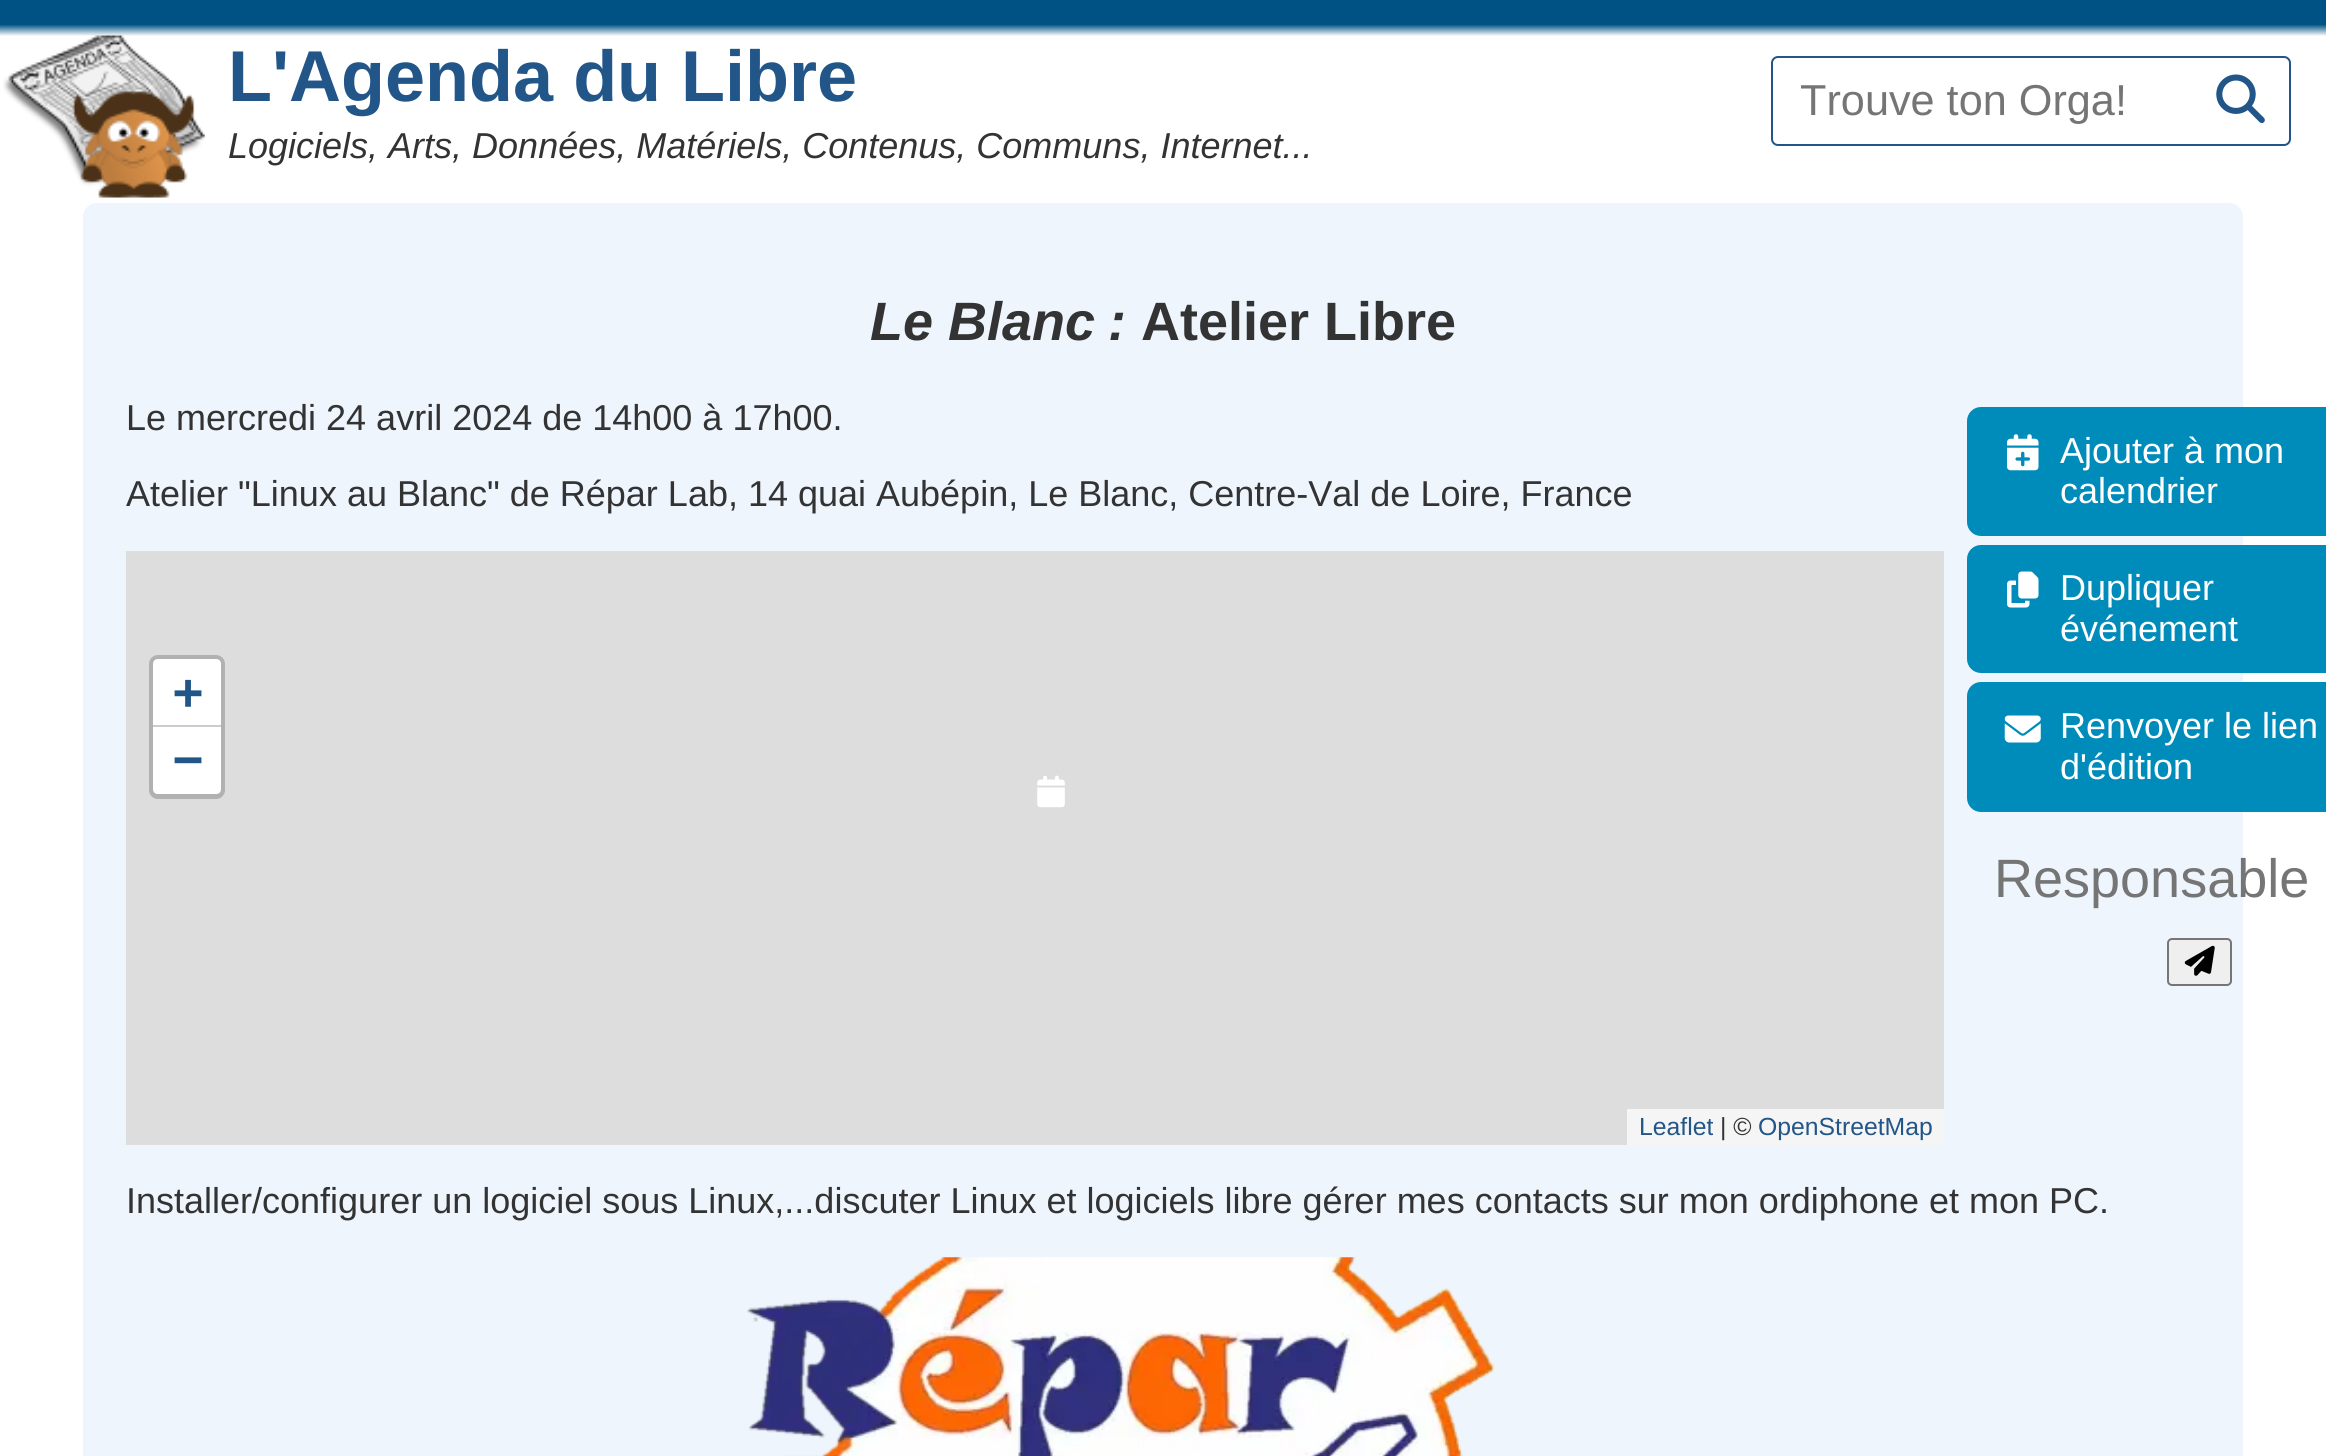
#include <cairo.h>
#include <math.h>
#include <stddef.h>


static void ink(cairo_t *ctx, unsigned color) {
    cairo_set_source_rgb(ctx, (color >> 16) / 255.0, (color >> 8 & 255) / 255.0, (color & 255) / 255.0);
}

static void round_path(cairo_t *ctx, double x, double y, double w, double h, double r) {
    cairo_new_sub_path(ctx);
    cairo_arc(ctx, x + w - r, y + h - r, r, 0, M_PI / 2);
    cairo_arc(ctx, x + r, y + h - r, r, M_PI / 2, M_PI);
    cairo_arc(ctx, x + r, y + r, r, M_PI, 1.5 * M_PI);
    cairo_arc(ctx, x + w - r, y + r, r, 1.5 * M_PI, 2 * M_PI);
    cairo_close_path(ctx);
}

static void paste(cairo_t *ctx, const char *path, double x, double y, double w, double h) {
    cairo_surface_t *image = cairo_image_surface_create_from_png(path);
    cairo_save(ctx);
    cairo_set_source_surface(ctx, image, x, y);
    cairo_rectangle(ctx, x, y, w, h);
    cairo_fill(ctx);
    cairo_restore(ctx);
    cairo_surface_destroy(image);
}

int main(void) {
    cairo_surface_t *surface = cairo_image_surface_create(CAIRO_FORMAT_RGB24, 2326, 1456);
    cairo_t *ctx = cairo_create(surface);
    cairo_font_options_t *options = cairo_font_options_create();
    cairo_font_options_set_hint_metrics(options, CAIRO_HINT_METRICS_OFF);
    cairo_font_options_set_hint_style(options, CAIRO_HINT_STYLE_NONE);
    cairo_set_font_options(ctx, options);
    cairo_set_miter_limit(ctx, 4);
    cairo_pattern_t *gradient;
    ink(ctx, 0xFFFFFF);
    cairo_paint(ctx);
    gradient = cairo_pattern_create_linear(1163, -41, 1163, 36);
    cairo_pattern_add_color_stop_rgba(gradient, 0.85, 0, 0.318, 0.518, 1);
    cairo_pattern_add_color_stop_rgba(gradient, 1, 1, 1, 1, 1);
    cairo_set_source(ctx, gradient);
    cairo_pattern_destroy(gradient);
    cairo_rectangle(ctx, 0, 0, 2326, 36);
    cairo_fill(ctx);
    paste(ctx, "media/1.png", 3, 35, 202, 163);
    cairo_select_font_face(ctx, "Liberation Sans", CAIRO_FONT_SLANT_NORMAL, CAIRO_FONT_WEIGHT_BOLD);
    cairo_set_font_size(ctx, 72);
    ink(ctx, 0x225588);
    cairo_move_to(ctx, 228, 101);
    cairo_show_text(ctx, "L'Agenda du Libre");
    round_path(ctx, 1772, 57, 518, 88, 6);
    cairo_stroke(ctx);
    cairo_select_font_face(ctx, "Liberation Sans", CAIRO_FONT_SLANT_NORMAL, CAIRO_FONT_WEIGHT_NORMAL);
    cairo_set_font_size(ctx, 43.25);
    ink(ctx, 0x757575);
    cairo_move_to(ctx, 1800, 115);
    cairo_show_text(ctx, "Trouve ton Orga!");
    paste(ctx, "media/2.png", 2216, 74, 49, 50);
    cairo_select_font_face(ctx, "Liberation Sans", CAIRO_FONT_SLANT_ITALIC, CAIRO_FONT_WEIGHT_NORMAL);
    cairo_set_font_size(ctx, 36);
    ink(ctx, 0x333333);
    cairo_move_to(ctx, 228, 158);
    cairo_show_text(ctx, "Logiciels, Arts, Données, Matériels, Contenus, Communs, Internet...");
    ink(ctx, 0xEEF5FD);
    round_path(ctx, 83, 203, 2160, 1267, 14);
    cairo_fill(ctx);
    cairo_select_font_face(ctx, "Liberation Sans", CAIRO_FONT_SLANT_ITALIC, CAIRO_FONT_WEIGHT_BOLD);
    cairo_set_font_size(ctx, 54);
    ink(ctx, 0x333333);
    cairo_move_to(ctx, 870, 340);
    cairo_show_text(ctx, "Le Blanc");
    cairo_move_to(ctx, 1108, 340);
    cairo_show_text(ctx, ":");
    cairo_select_font_face(ctx, "Liberation Sans", CAIRO_FONT_SLANT_NORMAL, CAIRO_FONT_WEIGHT_BOLD);
    cairo_move_to(ctx, 1141, 340);
    cairo_show_text(ctx, "Atelier Libre");
    cairo_select_font_face(ctx, "Liberation Sans", CAIRO_FONT_SLANT_NORMAL, CAIRO_FONT_WEIGHT_NORMAL);
    cairo_set_font_size(ctx, 36);
    cairo_move_to(ctx, 126, 430);
    cairo_show_text(ctx, "Le mercredi 24 avril 2024 de 14h00 à 17h00.");
    cairo_move_to(ctx, 126, 506);
    cairo_show_text(ctx, "Atelier \"Linux au Blanc\" de Répar Lab, 14 quai Aubépin, Le Blanc, Centre-Val de Loire, France");
    ink(ctx, 0x008CBA);
    round_path(ctx, 1968, 408, 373, 127, 13);
    cairo_fill_preserve(ctx);
    cairo_stroke(ctx);
    paste(ctx, "media/3.png", 2007, 434, 32, 37);
    ink(ctx, 0xFFFFFF);
    cairo_move_to(ctx, 2060, 463);
    cairo_show_text(ctx, "Ajouter à mon");
    cairo_move_to(ctx, 2060, 503);
    cairo_show_text(ctx, "calendrier");
    ink(ctx, 0x008CBA);
    round_path(ctx, 1968, 546, 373, 126, 13);
    cairo_fill_preserve(ctx);
    cairo_stroke(ctx);
    paste(ctx, "media/4.png", 2007, 571, 32, 37);
    ink(ctx, 0xFFFFFF);
    cairo_move_to(ctx, 2060, 600);
    cairo_show_text(ctx, "Dupliquer");
    cairo_move_to(ctx, 2060, 641);
    cairo_show_text(ctx, "événement");
    ink(ctx, 0x008CBA);
    round_path(ctx, 1968, 683, 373, 128, 13);
    cairo_fill_preserve(ctx);
    cairo_stroke(ctx);
    paste(ctx, "media/5.png", 2004, 715, 37, 28);
    ink(ctx, 0xFFFFFF);
    cairo_move_to(ctx, 2060, 738);
    cairo_show_text(ctx, "Renvoyer le lien");
    cairo_move_to(ctx, 2060, 779);
    cairo_show_text(ctx, "d'édition");
    cairo_set_font_size(ctx, 54);
    ink(ctx, 0x757575);
    cairo_move_to(ctx, 1994, 897);
    cairo_show_text(ctx, "Responsable");
    ink(ctx, 0xEFEFEF);
    round_path(ctx, 2168, 939, 63, 46, 4);
    cairo_fill_preserve(ctx);
    ink(ctx, 0x767676);
    cairo_stroke(ctx);
    paste(ctx, "media/6.png", 2184, 945, 31, 31);
    ink(ctx, 0xDDDDDD);
    cairo_rectangle(ctx, 126, 551, 1818, 594);
    cairo_fill(ctx);
    round_path(ctx, 151.5, 657.5, 71, 139, 6.5);
    ink(ctx, 0xB1B1B1);
    cairo_set_line_width(ctx, 5);
    cairo_stroke(ctx);
    ink(ctx, 0xFFFFFF);
    cairo_new_path(ctx);
    cairo_move_to(ctx, 158, 659);
    cairo_line_to(ctx, 216, 659);
    cairo_curve_to(ctx, 219, 659, 221, 661, 221, 664);
    cairo_line_to(ctx, 221, 727);
    cairo_line_to(ctx, 153, 727);
    cairo_line_to(ctx, 153, 664);
    cairo_curve_to(ctx, 153, 661, 155, 659, 158, 659);
    cairo_close_path(ctx);
    cairo_fill(ctx);
    ink(ctx, 0xCCCCCC);
    cairo_rectangle(ctx, 153, 725, 68, 2);
    cairo_fill(ctx);
    cairo_select_font_face(ctx, "DejaVu Sans Mono", CAIRO_FONT_SLANT_NORMAL, CAIRO_FONT_WEIGHT_BOLD);
    cairo_set_font_size(ctx, 50);
    ink(ctx, 0x225588);
    cairo_move_to(ctx, 173, 709);
    cairo_show_text(ctx, "+");
    ink(ctx, 0xFFFFFF);
    cairo_new_path(ctx);
    cairo_move_to(ctx, 153, 727);
    cairo_line_to(ctx, 221, 727);
    cairo_line_to(ctx, 221, 789);
    cairo_curve_to(ctx, 221, 792, 219, 794, 216, 794);
    cairo_line_to(ctx, 158, 794);
    cairo_curve_to(ctx, 155, 794, 153, 792, 153, 789);
    cairo_close_path(ctx);
    cairo_fill(ctx);
    ink(ctx, 0x225588);
    cairo_move_to(ctx, 173, 776);
    cairo_show_text(ctx, "−");
    ink(ctx, 0xF5F5F5);
    cairo_rectangle(ctx, 1627, 1109, 317, 36);
    cairo_fill(ctx);
    cairo_select_font_face(ctx, "Liberation Sans", CAIRO_FONT_SLANT_NORMAL, CAIRO_FONT_WEIGHT_NORMAL);
    cairo_set_font_size(ctx, 24.75);
    ink(ctx, 0x225588);
    cairo_move_to(ctx, 1639, 1135);
    cairo_show_text(ctx, "Leaflet");
    ink(ctx, 0x333333);
    cairo_move_to(ctx, 1720, 1135);
    cairo_show_text(ctx, "| ©");
    ink(ctx, 0x225588);
    cairo_move_to(ctx, 1758, 1135);
    cairo_show_text(ctx, "OpenStreetMap");
    paste(ctx, "media/7.png", 1037, 775, 28, 33);
    cairo_set_font_size(ctx, 36);
    ink(ctx, 0x333333);
    cairo_move_to(ctx, 126, 1213);
    cairo_show_text(ctx, "Installer/configurer un logiciel sous Linux,...discuter Linux et logiciels libre gérer mes contacts sur mon ordiphone et mon PC.");
    paste(ctx, "media/8.png", 747, 1257, 748, 199);
    cairo_surface_write_to_png(surface, "image.png");
    cairo_font_options_destroy(options);
    cairo_destroy(ctx);
    cairo_surface_destroy(surface);
    return 0;
}
